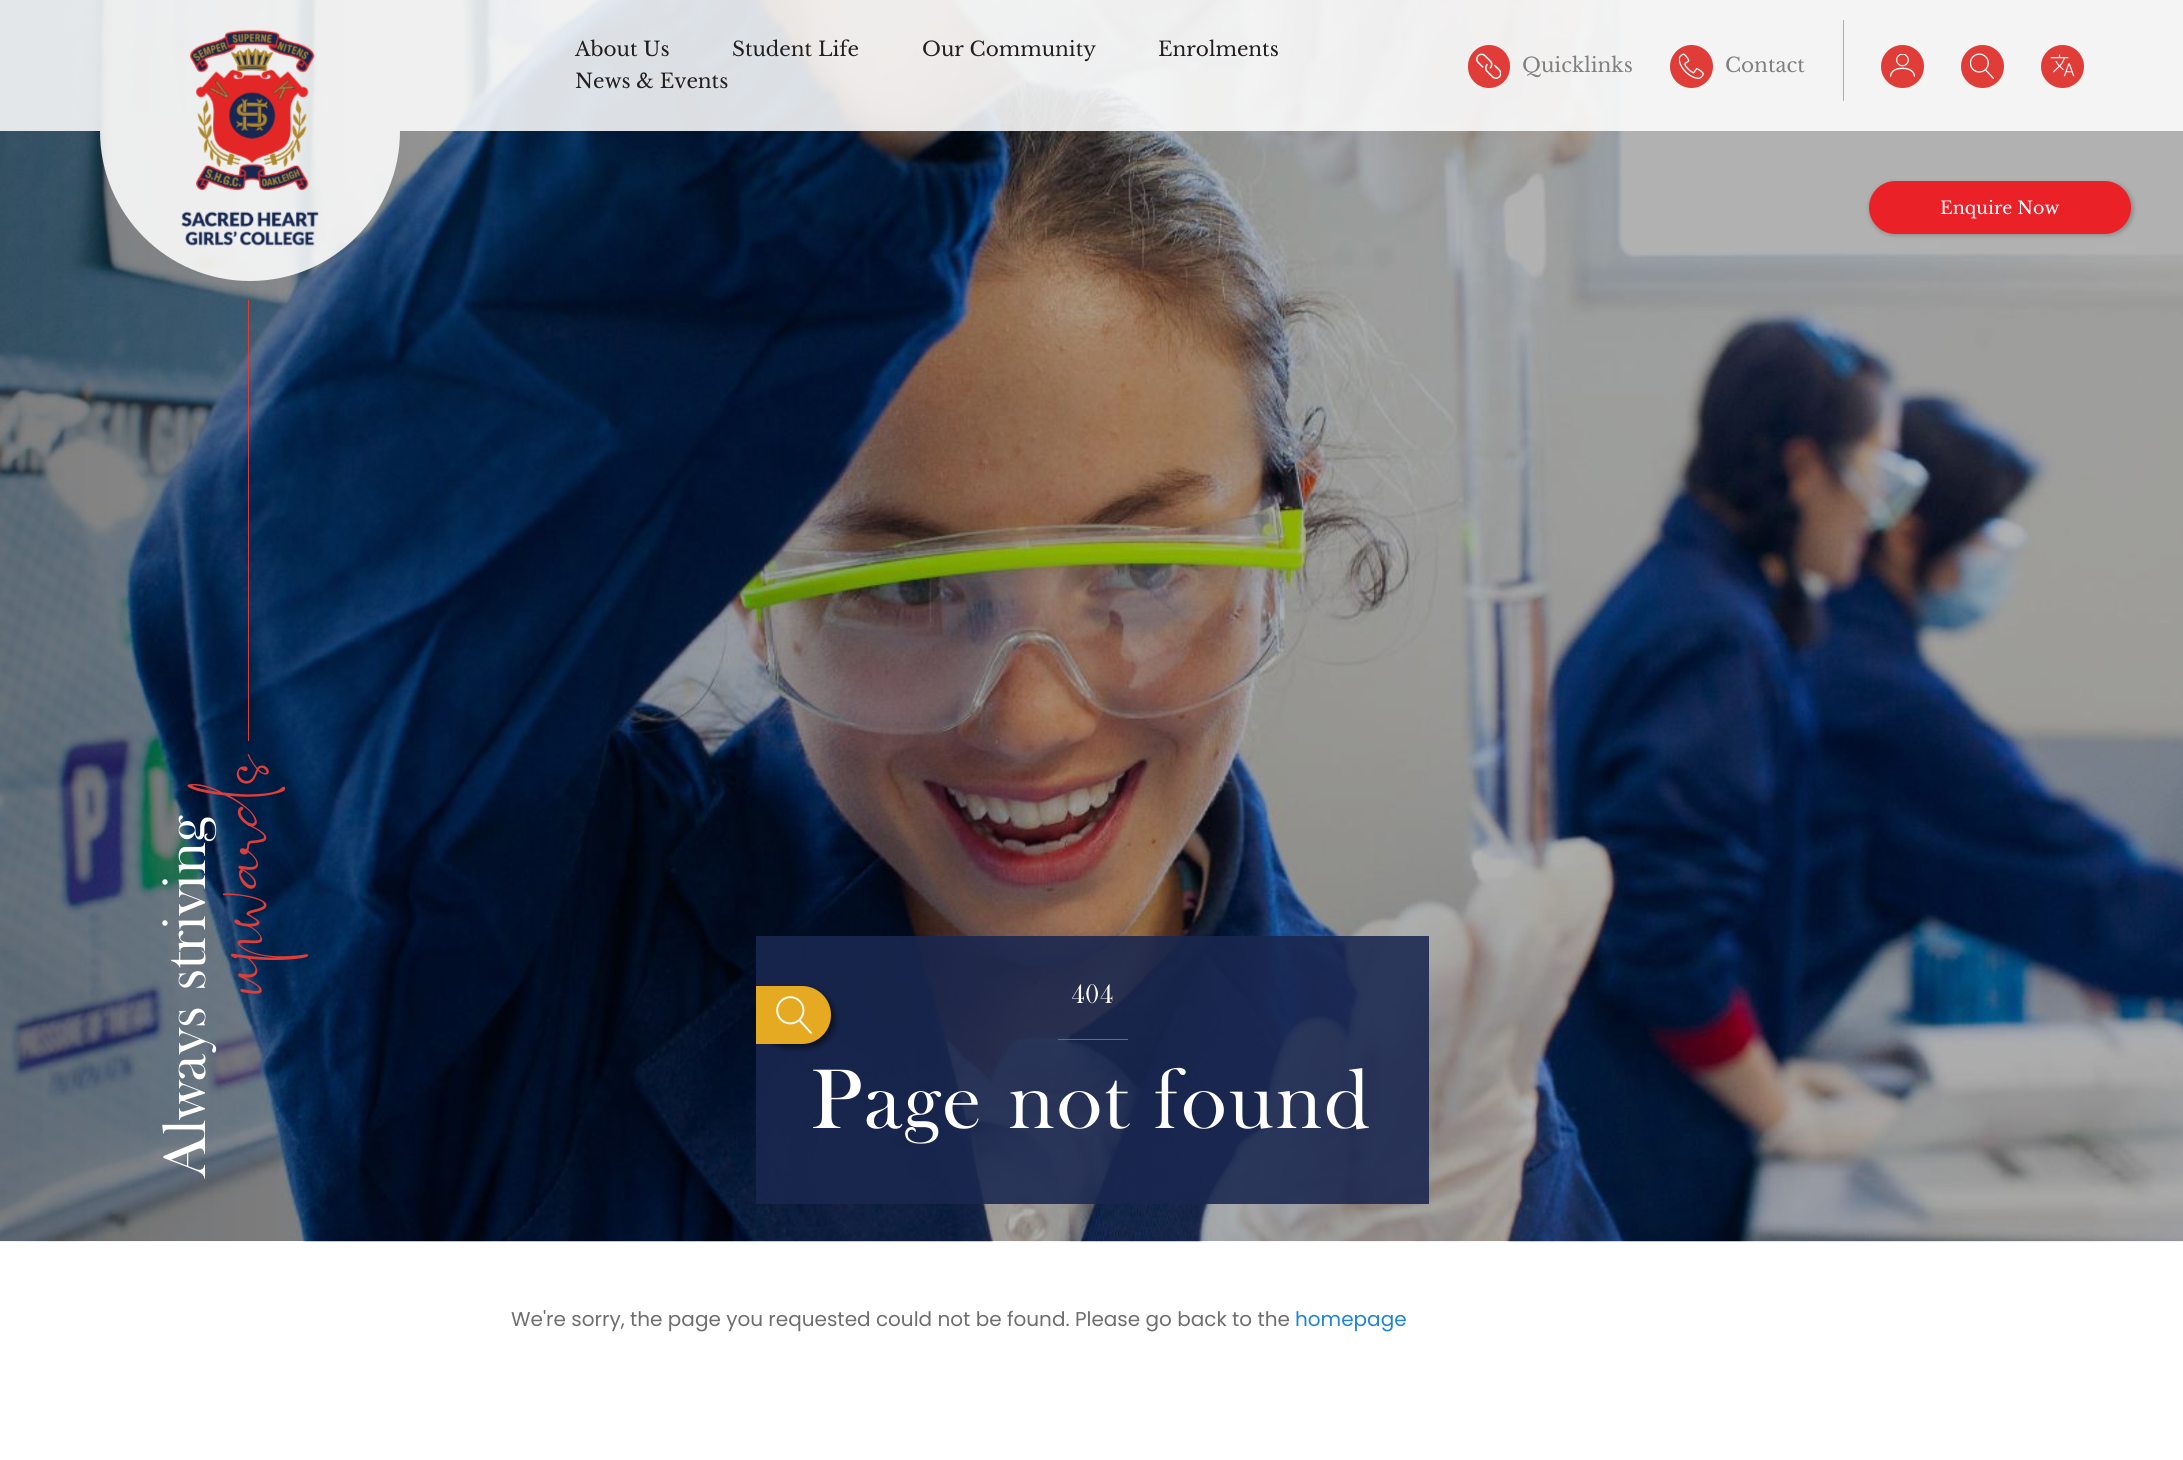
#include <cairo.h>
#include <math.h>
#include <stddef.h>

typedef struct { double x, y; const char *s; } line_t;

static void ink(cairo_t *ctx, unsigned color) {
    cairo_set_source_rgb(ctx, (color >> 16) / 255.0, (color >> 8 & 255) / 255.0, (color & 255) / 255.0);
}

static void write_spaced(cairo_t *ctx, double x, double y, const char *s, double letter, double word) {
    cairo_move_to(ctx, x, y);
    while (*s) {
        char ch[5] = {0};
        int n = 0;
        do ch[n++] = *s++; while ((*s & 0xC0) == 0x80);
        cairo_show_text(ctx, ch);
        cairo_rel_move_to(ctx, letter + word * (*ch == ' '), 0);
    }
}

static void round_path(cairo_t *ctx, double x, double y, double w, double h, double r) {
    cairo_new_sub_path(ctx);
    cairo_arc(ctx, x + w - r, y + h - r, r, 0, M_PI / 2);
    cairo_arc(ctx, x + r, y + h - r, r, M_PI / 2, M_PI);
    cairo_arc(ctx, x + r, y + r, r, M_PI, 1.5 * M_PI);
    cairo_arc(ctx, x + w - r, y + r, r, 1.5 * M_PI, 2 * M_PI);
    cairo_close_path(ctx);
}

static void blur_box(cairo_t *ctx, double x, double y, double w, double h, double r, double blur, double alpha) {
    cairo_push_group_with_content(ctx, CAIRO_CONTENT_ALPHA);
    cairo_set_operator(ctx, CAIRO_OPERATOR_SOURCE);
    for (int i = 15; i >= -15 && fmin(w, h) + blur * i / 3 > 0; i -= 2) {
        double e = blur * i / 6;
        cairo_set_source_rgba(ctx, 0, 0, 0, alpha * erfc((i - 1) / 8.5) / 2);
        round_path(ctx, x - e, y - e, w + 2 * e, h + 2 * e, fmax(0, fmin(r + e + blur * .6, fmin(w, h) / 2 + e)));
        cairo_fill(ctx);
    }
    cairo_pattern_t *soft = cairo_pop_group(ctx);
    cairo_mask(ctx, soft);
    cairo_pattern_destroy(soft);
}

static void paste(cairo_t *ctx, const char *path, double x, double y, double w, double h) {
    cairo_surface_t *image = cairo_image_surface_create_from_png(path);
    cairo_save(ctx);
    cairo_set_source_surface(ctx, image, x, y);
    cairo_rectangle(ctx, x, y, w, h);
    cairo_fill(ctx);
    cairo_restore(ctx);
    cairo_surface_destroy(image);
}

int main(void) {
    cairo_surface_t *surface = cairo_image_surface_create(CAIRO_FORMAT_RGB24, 2183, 1460);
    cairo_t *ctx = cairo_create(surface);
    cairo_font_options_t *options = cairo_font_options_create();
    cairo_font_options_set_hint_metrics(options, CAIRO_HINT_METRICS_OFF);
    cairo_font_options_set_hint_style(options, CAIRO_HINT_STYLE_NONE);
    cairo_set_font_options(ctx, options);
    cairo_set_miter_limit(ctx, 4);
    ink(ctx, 0xFFFFFF);
    cairo_paint(ctx);
    paste(ctx, "media/7.png", 0, 0, 2183, 1242);
    cairo_set_source_rgba(ctx, 1, 1, 1, 0.86);
    cairo_rectangle(ctx, 0, 0, 2183, 131);
    cairo_fill(ctx);
    cairo_new_path(ctx);
    cairo_move_to(ctx, 100, 131);
    cairo_line_to(ctx, 400, 131);
    cairo_curve_to(ctx, 400, 214, 333, 281, 250, 281);
    cairo_curve_to(ctx, 167, 281, 100, 214, 100, 131);
    cairo_close_path(ctx);
    cairo_fill(ctx);
    paste(ctx, "media/1.png", 181, 29, 138, 217);
    cairo_select_font_face(ctx, "Libre Baskerville", CAIRO_FONT_SLANT_NORMAL, CAIRO_FONT_WEIGHT_NORMAL);
    cairo_set_font_size(ctx, 20);
    ink(ctx, 0x231F20);
    {
        static const line_t items[] = {
            {575, 56, "About Us"},
            {732, 56, "Student Life"},
            {922, 56, "Our Community"},
            {1158, 56, "Enrolments"},
            {575, 88, "News & Events"},
        };
        for (size_t i = 0; i < sizeof items / sizeof *items; i++) {
            cairo_move_to(ctx, items[i].x, items[i].y);
            cairo_show_text(ctx, items[i].s);
        }
    }
    ink(ctx, 0xE03D39);
    round_path(ctx, 1468, 45, 42, 43, 21);
    cairo_fill(ctx);
    paste(ctx, "media/2.png", 1476, 53, 25, 26);
    ink(ctx, 0x808083);
    cairo_move_to(ctx, 1522, 72);
    cairo_show_text(ctx, "Quicklinks");
    ink(ctx, 0xE03D39);
    cairo_new_path(ctx);
    cairo_arc(ctx, 1691.5, 66.5, 21.5, 0, 2 * M_PI);
    cairo_fill(ctx);
    paste(ctx, "media/3.png", 1679, 53, 25, 26);
    ink(ctx, 0x808083);
    cairo_move_to(ctx, 1725, 72);
    cairo_show_text(ctx, "Contact");
    ink(ctx, 0xE5AA3F);
    cairo_rectangle(ctx, 1843, 20, 1, 81);
    cairo_fill(ctx);
    ink(ctx, 0xE03D39);
    cairo_arc(ctx, 1902.5, 66.5, 21.5, 0, 2 * M_PI);
    cairo_fill(ctx);
    paste(ctx, "media/4.png", 1890, 54, 25, 23);
    cairo_arc(ctx, 1982.5, 66.5, 21.5, 0, 2 * M_PI);
    cairo_fill(ctx);
    paste(ctx, "media/5.png", 1970, 53, 24, 26);
    cairo_arc(ctx, 2062.5, 66.5, 21.5, 0, 2 * M_PI);
    cairo_fill(ctx);
    paste(ctx, "media/6.png", 2050, 54, 25, 23);
    ink(ctx, 0x000000);
    blur_box(ctx, 1870, 183, 263, 52, 26, 2.5, 0.25);
    ink(ctx, 0xEA2127);
    round_path(ctx, 1869, 181, 262, 53, 26.5);
    cairo_fill(ctx);
    cairo_set_font_size(ctx, 17.5);
    ink(ctx, 0xFFFFFF);
    cairo_move_to(ctx, 1940, 214);
    cairo_show_text(ctx, "Enquire Now");
    ink(ctx, 0xE03D39);
    cairo_rectangle(ctx, 248, 300, 1, 441);
    cairo_fill(ctx);
    cairo_select_font_face(ctx, "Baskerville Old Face", CAIRO_FONT_SLANT_NORMAL, CAIRO_FONT_WEIGHT_NORMAL);
    cairo_set_font_size(ctx, 62.5);
    ink(ctx, 0xFFFFFF);
    cairo_save(ctx);
    cairo_translate(ctx, 205, 1178);
    cairo_rotate(ctx, -90 * M_PI / 180);
    cairo_move_to(ctx, 0, 0);
    cairo_show_text(ctx, "Always striving");
    cairo_restore(ctx);
    cairo_select_font_face(ctx, "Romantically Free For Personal", CAIRO_FONT_SLANT_NORMAL, CAIRO_FONT_WEIGHT_NORMAL);
    cairo_set_font_size(ctx, 45);
    ink(ctx, 0xDF3D38);
    cairo_save(ctx);
    cairo_translate(ctx, 255, 993);
    cairo_rotate(ctx, -90 * M_PI / 180);
    cairo_move_to(ctx, 0, 0);
    cairo_show_text(ctx, "upwards");
    cairo_restore(ctx);
    cairo_set_source_rgba(ctx, 0.102, 0.153, 0.314, 0.88);
    cairo_rectangle(ctx, 756, 936, 673, 268);
    cairo_fill(ctx);
    ink(ctx, 0x000000);
    blur_box(ctx, 760, 990, 75, 58, 29, 3, 0.5);
    ink(ctx, 0xE6AA22);
    cairo_new_path(ctx);
    cairo_move_to(ctx, 756, 986);
    cairo_line_to(ctx, 802, 986);
    cairo_curve_to(ctx, 818, 986, 831, 999, 831, 1015);
    cairo_curve_to(ctx, 831, 1031, 818, 1044, 802, 1044);
    cairo_line_to(ctx, 756, 1044);
    cairo_close_path(ctx);
    cairo_fill(ctx);
    paste(ctx, "media/8.png", 776, 996, 36, 38);
    cairo_select_font_face(ctx, "Baskerville Old Face", CAIRO_FONT_SLANT_NORMAL, CAIRO_FONT_WEIGHT_NORMAL);
    cairo_set_font_size(ctx, 28);
    ink(ctx, 0xFFFFFF);
    write_spaced(ctx, 1071, 1003, "404", 0.5, 0);
    ink(ctx, 0xDF3E38);
    cairo_rectangle(ctx, 1058, 1039, 70, 1);
    cairo_fill(ctx);
    cairo_set_font_size(ctx, 87.5);
    ink(ctx, 0xFFFFFF);
    write_spaced(ctx, 811, 1128, "Page not found", 2.5, 0);
    cairo_select_font_face(ctx, "Poppins", CAIRO_FONT_SLANT_NORMAL, CAIRO_FONT_WEIGHT_NORMAL);
    cairo_set_font_size(ctx, 20);
    ink(ctx, 0x706D6E);
    cairo_move_to(ctx, 511, 1326);
    cairo_show_text(ctx, "We're sorry, the page you requested could not be found. Please go back to the");
    ink(ctx, 0x1C85DA);
    cairo_move_to(ctx, 1295, 1326);
    cairo_show_text(ctx, "homepage");
    cairo_surface_write_to_png(surface, "image.png");
    cairo_font_options_destroy(options);
    cairo_destroy(ctx);
    cairo_surface_destroy(surface);
    return 0;
}
